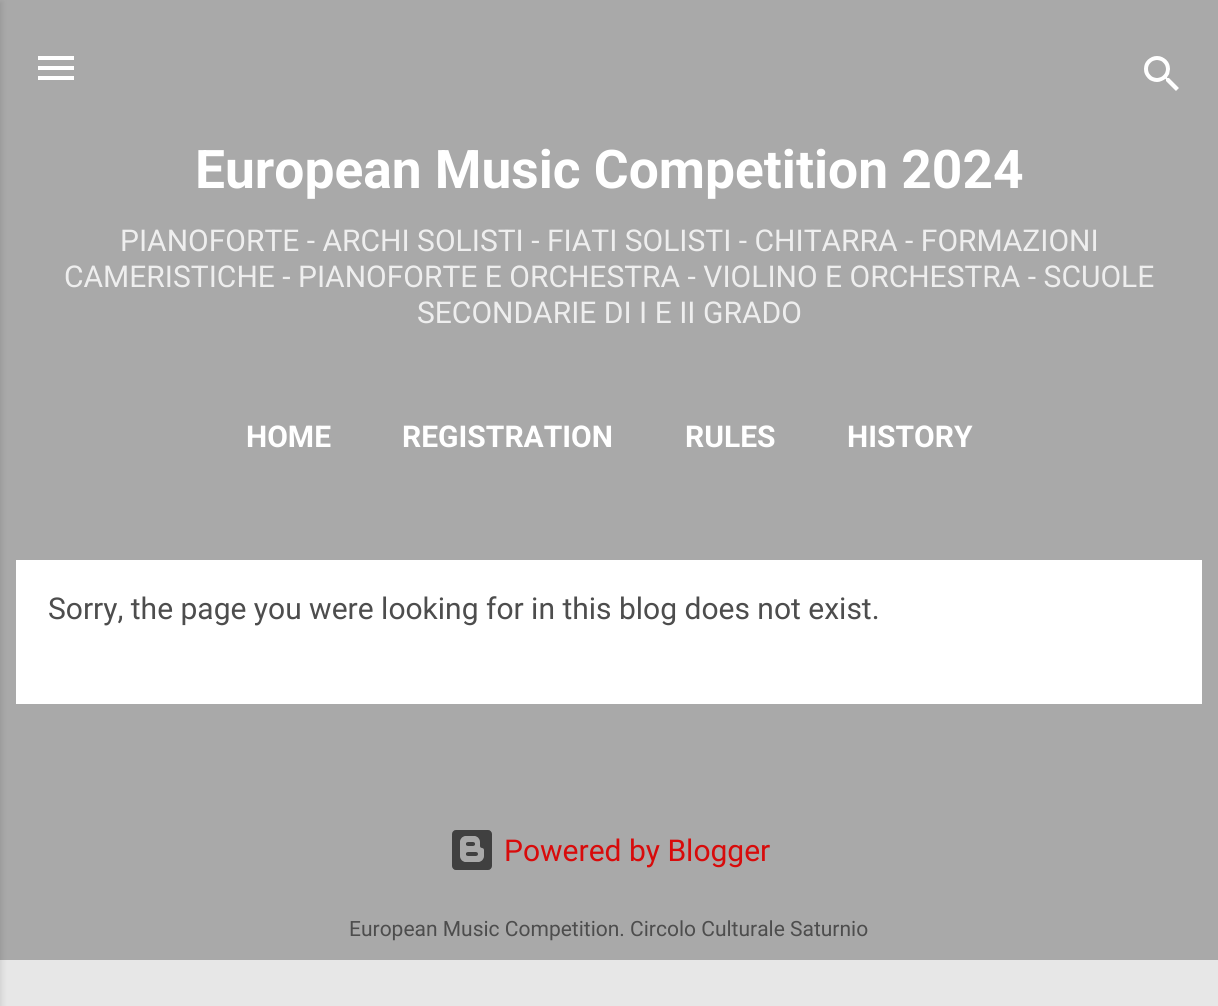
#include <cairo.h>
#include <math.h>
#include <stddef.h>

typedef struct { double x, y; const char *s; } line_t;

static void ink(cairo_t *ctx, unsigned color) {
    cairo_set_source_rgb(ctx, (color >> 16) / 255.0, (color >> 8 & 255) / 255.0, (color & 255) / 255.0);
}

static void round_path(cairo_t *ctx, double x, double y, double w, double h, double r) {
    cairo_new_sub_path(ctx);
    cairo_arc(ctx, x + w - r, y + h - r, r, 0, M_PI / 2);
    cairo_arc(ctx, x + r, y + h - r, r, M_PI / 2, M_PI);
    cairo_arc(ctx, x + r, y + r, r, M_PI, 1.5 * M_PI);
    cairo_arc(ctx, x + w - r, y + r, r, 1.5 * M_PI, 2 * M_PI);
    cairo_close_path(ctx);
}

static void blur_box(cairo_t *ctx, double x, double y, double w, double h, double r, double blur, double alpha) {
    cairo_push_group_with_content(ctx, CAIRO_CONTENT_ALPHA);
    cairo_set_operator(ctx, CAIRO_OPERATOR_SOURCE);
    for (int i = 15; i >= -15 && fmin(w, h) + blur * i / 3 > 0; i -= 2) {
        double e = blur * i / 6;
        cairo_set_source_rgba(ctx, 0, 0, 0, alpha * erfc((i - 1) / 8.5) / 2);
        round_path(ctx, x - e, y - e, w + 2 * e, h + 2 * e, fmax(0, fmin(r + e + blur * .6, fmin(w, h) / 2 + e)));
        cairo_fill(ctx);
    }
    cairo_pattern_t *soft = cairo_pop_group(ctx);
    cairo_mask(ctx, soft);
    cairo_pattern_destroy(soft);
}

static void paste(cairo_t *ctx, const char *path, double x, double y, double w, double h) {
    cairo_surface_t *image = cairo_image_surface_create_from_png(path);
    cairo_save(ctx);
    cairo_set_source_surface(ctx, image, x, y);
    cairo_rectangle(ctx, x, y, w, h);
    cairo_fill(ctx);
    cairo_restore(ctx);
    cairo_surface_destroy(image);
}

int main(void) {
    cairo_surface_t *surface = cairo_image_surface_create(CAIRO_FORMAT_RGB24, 1218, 1006);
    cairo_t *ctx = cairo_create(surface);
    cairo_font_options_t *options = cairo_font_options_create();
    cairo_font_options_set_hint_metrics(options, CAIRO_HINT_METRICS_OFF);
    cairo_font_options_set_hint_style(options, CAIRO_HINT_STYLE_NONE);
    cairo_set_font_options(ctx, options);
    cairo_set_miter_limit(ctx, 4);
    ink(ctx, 0xE7E7E7);
    cairo_paint(ctx);
    ink(ctx, 0xA9A9A9);
    cairo_rectangle(ctx, 0, 0, 1218, 960);
    cairo_fill(ctx);
    ink(ctx, 0x000000);
    blur_box(ctx, -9, 2, 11, 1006, 0, 3, 0.1);
    paste(ctx, "media/1.png", 38, 56, 36, 24);
    paste(ctx, "media/2.png", 1144, 56, 35, 35);
    cairo_select_font_face(ctx, "Roboto", CAIRO_FONT_SLANT_NORMAL, CAIRO_FONT_WEIGHT_BOLD);
    cairo_set_font_size(ctx, 53.3);
    ink(ctx, 0xFFFFFF);
    cairo_move_to(ctx, 195, 188);
    cairo_show_text(ctx, "European Music Competition 2024");
    cairo_select_font_face(ctx, "Roboto", CAIRO_FONT_SLANT_NORMAL, CAIRO_FONT_WEIGHT_NORMAL);
    cairo_set_font_size(ctx, 30);
    ink(ctx, 0xEEEEEE);
    {
        static const line_t items[] = {
            {120, 251, "PIANOFORTE - ARCHI SOLISTI - FIATI SOLISTI - CHITARRA - FORMAZIONI"},
            {64, 287, "CAMERISTICHE - PIANOFORTE E ORCHESTRA - VIOLINO E ORCHESTRA - SCUOLE"},
            {417, 323, "SECONDARIE DI I E II GRADO"},
        };
        for (size_t i = 0; i < sizeof items / sizeof *items; i++) {
            cairo_move_to(ctx, items[i].x, items[i].y);
            cairo_show_text(ctx, items[i].s);
        }
    }
    cairo_select_font_face(ctx, "Roboto", CAIRO_FONT_SLANT_NORMAL, CAIRO_FONT_WEIGHT_BOLD);
    ink(ctx, 0xFFFFFF);
    {
        static const line_t items[] = {
            {246, 447, "HOME"},
            {402, 447, "REGISTRATION"},
            {685, 447, "RULES"},
            {847, 447, "HISTORY"},
        };
        for (size_t i = 0; i < sizeof items / sizeof *items; i++) {
            cairo_move_to(ctx, items[i].x, items[i].y);
            cairo_show_text(ctx, items[i].s);
        }
    }
    cairo_rectangle(ctx, 16, 560, 1186, 144);
    cairo_fill(ctx);
    cairo_select_font_face(ctx, "Roboto", CAIRO_FONT_SLANT_NORMAL, CAIRO_FONT_WEIGHT_NORMAL);
    ink(ctx, 0x4D4D4D);
    cairo_move_to(ctx, 48, 619);
    cairo_show_text(ctx, "Sorry, the page you were looking for in this blog does not exist.");
    paste(ctx, "media/3.png", 452, 830, 40, 40);
    ink(ctx, 0xD80B0B);
    cairo_move_to(ctx, 504, 861);
    cairo_show_text(ctx, "Powered by Blogger");
    cairo_set_font_size(ctx, 21);
    ink(ctx, 0x4D4D4D);
    cairo_move_to(ctx, 349, 936);
    cairo_show_text(ctx, "European Music Competition. Circolo Culturale Saturnio");
    cairo_surface_write_to_png(surface, "image.png");
    cairo_font_options_destroy(options);
    cairo_destroy(ctx);
    cairo_surface_destroy(surface);
    return 0;
}
